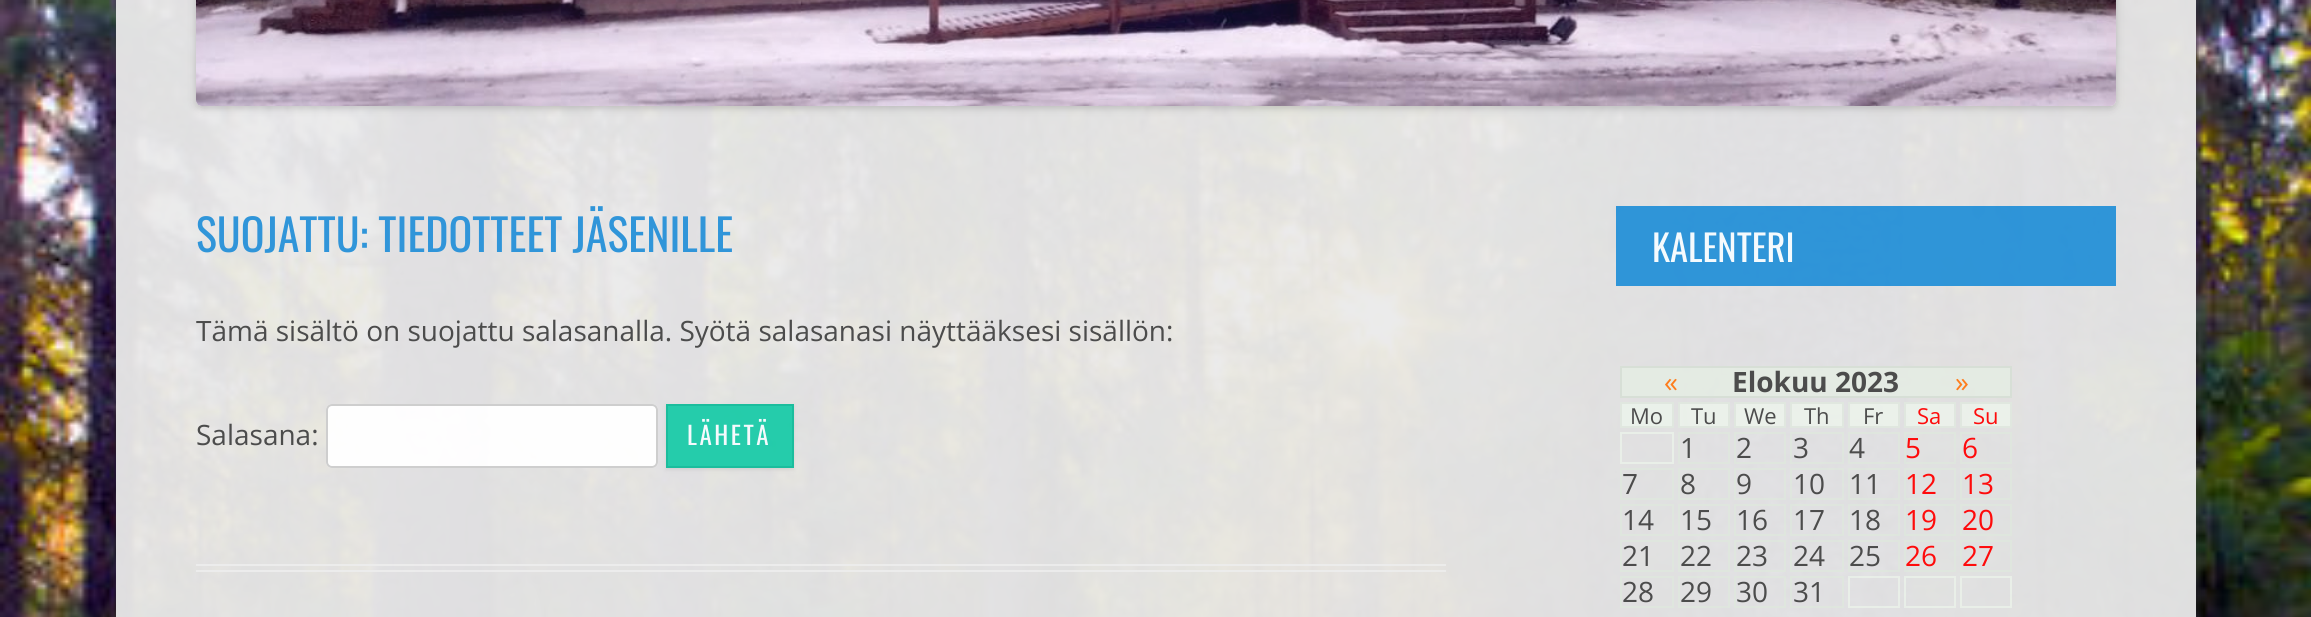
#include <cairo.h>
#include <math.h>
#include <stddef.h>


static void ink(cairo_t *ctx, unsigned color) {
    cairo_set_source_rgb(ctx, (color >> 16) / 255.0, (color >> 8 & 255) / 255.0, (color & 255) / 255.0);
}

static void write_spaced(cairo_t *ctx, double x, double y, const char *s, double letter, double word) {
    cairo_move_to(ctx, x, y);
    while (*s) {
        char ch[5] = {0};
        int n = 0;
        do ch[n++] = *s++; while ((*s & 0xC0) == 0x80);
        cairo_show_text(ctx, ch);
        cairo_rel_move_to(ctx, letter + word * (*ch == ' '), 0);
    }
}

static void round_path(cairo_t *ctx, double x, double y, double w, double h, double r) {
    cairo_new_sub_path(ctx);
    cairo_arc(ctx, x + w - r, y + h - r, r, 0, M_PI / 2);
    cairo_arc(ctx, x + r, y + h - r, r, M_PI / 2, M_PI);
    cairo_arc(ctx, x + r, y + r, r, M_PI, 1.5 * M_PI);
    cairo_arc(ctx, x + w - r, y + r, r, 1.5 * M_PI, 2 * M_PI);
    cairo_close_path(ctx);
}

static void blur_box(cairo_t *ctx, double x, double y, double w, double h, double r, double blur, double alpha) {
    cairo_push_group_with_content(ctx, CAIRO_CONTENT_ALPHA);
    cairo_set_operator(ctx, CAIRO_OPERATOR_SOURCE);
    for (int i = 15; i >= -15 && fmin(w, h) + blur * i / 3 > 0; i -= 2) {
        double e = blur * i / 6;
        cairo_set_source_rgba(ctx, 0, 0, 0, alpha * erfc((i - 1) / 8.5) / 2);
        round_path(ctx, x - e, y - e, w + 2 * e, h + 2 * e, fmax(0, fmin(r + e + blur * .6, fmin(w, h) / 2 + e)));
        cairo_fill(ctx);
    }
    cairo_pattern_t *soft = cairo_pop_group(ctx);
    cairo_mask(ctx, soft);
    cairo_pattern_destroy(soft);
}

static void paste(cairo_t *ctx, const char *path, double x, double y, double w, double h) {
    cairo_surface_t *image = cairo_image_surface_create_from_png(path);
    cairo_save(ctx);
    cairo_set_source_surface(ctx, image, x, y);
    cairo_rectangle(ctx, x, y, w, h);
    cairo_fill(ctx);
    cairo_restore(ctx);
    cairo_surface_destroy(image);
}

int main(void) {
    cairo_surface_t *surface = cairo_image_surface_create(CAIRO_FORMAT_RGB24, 2311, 617);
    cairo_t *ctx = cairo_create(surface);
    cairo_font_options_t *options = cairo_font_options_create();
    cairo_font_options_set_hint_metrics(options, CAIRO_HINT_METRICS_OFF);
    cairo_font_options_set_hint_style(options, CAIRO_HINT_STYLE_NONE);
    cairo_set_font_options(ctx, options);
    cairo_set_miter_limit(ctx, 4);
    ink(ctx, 0xFFFFFF);
    cairo_paint(ctx);
    paste(ctx, "media/1.png", 0, 0, 2311, 617);
    cairo_save(ctx);
    cairo_set_fill_rule(ctx, CAIRO_FILL_RULE_EVEN_ODD);
    cairo_new_path(ctx);
    cairo_move_to(ctx, 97, 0);
    cairo_line_to(ctx, 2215, 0);
    cairo_line_to(ctx, 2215, 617);
    cairo_line_to(ctx, 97, 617);
    cairo_close_path(ctx);
    cairo_move_to(ctx, 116, -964);
    cairo_line_to(ctx, 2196, -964);
    cairo_line_to(ctx, 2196, 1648);
    cairo_line_to(ctx, 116, 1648);
    cairo_close_path(ctx);
    cairo_clip(ctx);
    ink(ctx, 0x646464);
    blur_box(ctx, 116, -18, 2080, 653, 0, 6, 0.28);
    cairo_restore(ctx);
    cairo_save(ctx);
    cairo_set_fill_rule(ctx, CAIRO_FILL_RULE_EVEN_ODD);
    cairo_new_path(ctx);
    cairo_move_to(ctx, 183, 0);
    cairo_line_to(ctx, 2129, 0);
    cairo_line_to(ctx, 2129, 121);
    cairo_line_to(ctx, 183, 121);
    cairo_close_path(ctx);
    cairo_move_to(ctx, 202, -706);
    cairo_line_to(ctx, 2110, -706);
    cairo_curve_to(ctx, 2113.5, -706, 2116, -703.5, 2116, -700);
    cairo_line_to(ctx, 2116, 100);
    cairo_curve_to(ctx, 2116, 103.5, 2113.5, 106, 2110, 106);
    cairo_line_to(ctx, 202, 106);
    cairo_curve_to(ctx, 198.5, 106, 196, 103.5, 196, 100);
    cairo_line_to(ctx, 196, -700);
    cairo_curve_to(ctx, 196, -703.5, 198.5, -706, 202, -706);
    cairo_close_path(ctx);
    cairo_clip(ctx);
    ink(ctx, 0x000000);
    blur_box(ctx, 196, -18, 1920, 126, 6, 4, 0.19);
    cairo_restore(ctx);
    paste(ctx, "media/2.png", 196, 0, 1920, 106);
    cairo_set_source_rgba(ctx, 0.929, 0.929, 0.929, 0.95);
    cairo_rectangle(ctx, 196, 564, 1250, 2);
    cairo_fill(ctx);
    cairo_rectangle(ctx, 196, 570, 1250, 2);
    cairo_fill(ctx);
    cairo_select_font_face(ctx, "Oswald", CAIRO_FONT_SLANT_NORMAL, CAIRO_FONT_WEIGHT_NORMAL);
    cairo_set_font_size(ctx, 44);
    ink(ctx, 0x3095D9);
    cairo_move_to(ctx, 196, 252);
    cairo_show_text(ctx, "SUOJATTU: TIEDOTTEET JÄSENILLE");
    cairo_select_font_face(ctx, "Open Sans", CAIRO_FONT_SLANT_NORMAL, CAIRO_FONT_WEIGHT_NORMAL);
    cairo_set_font_size(ctx, 28);
    ink(ctx, 0x4C4C4C);
    cairo_move_to(ctx, 196, 341);
    cairo_show_text(ctx, "Tämä sisältö on suojattu salasanalla. Syötä salasanasi näyttääksesi sisällön:");
    cairo_move_to(ctx, 196, 445);
    cairo_show_text(ctx, "Salasana:");
    cairo_set_source_rgba(ctx, 1, 1, 1, 0.95);
    round_path(ctx, 326, 404, 332, 64, 6);
    cairo_fill(ctx);
    round_path(ctx, 327, 405, 330, 62, 5);
    cairo_set_source_rgba(ctx, 0.8, 0.8, 0.8, 0.95);
    cairo_stroke(ctx);
    cairo_save(ctx);
    cairo_set_fill_rule(ctx, CAIRO_FILL_RULE_EVEN_ODD);
    cairo_new_path(ctx);
    cairo_move_to(ctx, 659, 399);
    cairo_line_to(ctx, 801, 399);
    cairo_line_to(ctx, 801, 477);
    cairo_line_to(ctx, 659, 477);
    cairo_close_path(ctx);
    cairo_move_to(ctx, 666, 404);
    cairo_line_to(ctx, 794, 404);
    cairo_line_to(ctx, 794, 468);
    cairo_line_to(ctx, 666, 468);
    cairo_close_path(ctx);
    cairo_clip(ctx);
    ink(ctx, 0x404040);
    blur_box(ctx, 666, 406, 128, 64, 0, 2, 0.1);
    cairo_restore(ctx);
    cairo_set_source_rgba(ctx, 0.11, 0.796, 0.659, 0.95);
    cairo_rectangle(ctx, 667, 405, 126, 62);
    cairo_fill_preserve(ctx);
    ink(ctx, 0x1BBD9D);
    cairo_stroke(ctx);
    cairo_select_font_face(ctx, "Oswald", CAIRO_FONT_SLANT_NORMAL, CAIRO_FONT_WEIGHT_NORMAL);
    cairo_set_font_size(ctx, 25);
    ink(ctx, 0xF5FAFD);
    write_spaced(ctx, 687, 445, "LÄHETÄ", 2.5, 0);
    cairo_set_source_rgba(ctx, 0.149, 0.569, 0.847, 0.95);
    cairo_rectangle(ctx, 1616, 206, 500, 80);
    cairo_fill(ctx);
    cairo_set_font_size(ctx, 36.5);
    ink(ctx, 0xF5FAFD);
    cairo_move_to(ctx, 1652, 262);
    cairo_show_text(ctx, "KALENTERI");
    cairo_set_source_rgba(ctx, 0.894, 0.922, 0.89, 0.95);
    cairo_rectangle(ctx, 1621, 367, 390, 30);
    cairo_fill_preserve(ctx);
    ink(ctx, 0xD7DFD6);
    cairo_stroke(ctx);
    cairo_select_font_face(ctx, "Open Sans", CAIRO_FONT_SLANT_NORMAL, CAIRO_FONT_WEIGHT_NORMAL);
    cairo_set_font_size(ctx, 28);
    ink(ctx, 0xFE7D1D);
    cairo_move_to(ctx, 1664, 392);
    cairo_show_text(ctx, "«");
    cairo_select_font_face(ctx, "Open Sans", CAIRO_FONT_SLANT_NORMAL, CAIRO_FONT_WEIGHT_BOLD);
    ink(ctx, 0x4C4C4C);
    cairo_move_to(ctx, 1732, 392);
    cairo_show_text(ctx, "Elokuu 2023");
    cairo_select_font_face(ctx, "Open Sans", CAIRO_FONT_SLANT_NORMAL, CAIRO_FONT_WEIGHT_NORMAL);
    ink(ctx, 0xFE7D1D);
    cairo_move_to(ctx, 1955, 392);
    cairo_show_text(ctx, "»");
    ink(ctx, 0xEAF1EA);
    cairo_rectangle(ctx, 1621, 403, 52, 24);
    cairo_fill_preserve(ctx);
    ink(ctx, 0xE0E7DF);
    cairo_stroke(ctx);
    cairo_set_font_size(ctx, 22);
    ink(ctx, 0x4C4C4C);
    cairo_move_to(ctx, 1630, 424);
    cairo_show_text(ctx, "Mo");
    cairo_set_source_rgba(ctx, 0.922, 0.949, 0.918, 0.95);
    cairo_rectangle(ctx, 1679, 403, 50, 24);
    cairo_fill_preserve(ctx);
    ink(ctx, 0xE0E7DF);
    cairo_stroke(ctx);
    ink(ctx, 0x4C4C4C);
    cairo_move_to(ctx, 1691, 424);
    cairo_show_text(ctx, "Tu");
    cairo_set_source_rgba(ctx, 0.922, 0.949, 0.918, 0.95);
    cairo_rectangle(ctx, 1735, 403, 50, 24);
    cairo_fill_preserve(ctx);
    ink(ctx, 0xE0E7DF);
    cairo_stroke(ctx);
    ink(ctx, 0x4C4C4C);
    cairo_move_to(ctx, 1744, 424);
    cairo_show_text(ctx, "We");
    cairo_set_source_rgba(ctx, 0.922, 0.949, 0.918, 0.95);
    cairo_rectangle(ctx, 1791, 403, 52, 24);
    cairo_fill_preserve(ctx);
    ink(ctx, 0xE0E7DF);
    cairo_stroke(ctx);
    ink(ctx, 0x4C4C4C);
    cairo_move_to(ctx, 1804, 424);
    cairo_show_text(ctx, "Th");
    cairo_set_source_rgba(ctx, 0.922, 0.949, 0.918, 0.95);
    cairo_rectangle(ctx, 1849, 403, 50, 24);
    cairo_fill_preserve(ctx);
    ink(ctx, 0xE0E7DF);
    cairo_stroke(ctx);
    ink(ctx, 0x4C4C4C);
    cairo_move_to(ctx, 1863, 424);
    cairo_show_text(ctx, "Fr");
    cairo_set_source_rgba(ctx, 0.922, 0.949, 0.918, 0.95);
    cairo_rectangle(ctx, 1905, 403, 50, 24);
    cairo_fill_preserve(ctx);
    ink(ctx, 0xE0E7DF);
    cairo_stroke(ctx);
    ink(ctx, 0xFE0C0C);
    cairo_move_to(ctx, 1917, 424);
    cairo_show_text(ctx, "Sa");
    cairo_set_source_rgba(ctx, 0.922, 0.949, 0.918, 0.95);
    cairo_rectangle(ctx, 1961, 403, 50, 24);
    cairo_fill_preserve(ctx);
    ink(ctx, 0xE0E7DF);
    cairo_stroke(ctx);
    ink(ctx, 0xFE0C0C);
    cairo_move_to(ctx, 1973, 424);
    cairo_show_text(ctx, "Su");
    cairo_rectangle(ctx, 1621, 433, 52, 30);
    ink(ctx, 0xE9EFE8);
    cairo_stroke(ctx);
    cairo_rectangle(ctx, 1679, 433, 50, 30);
    cairo_set_source_rgba(ctx, 0.875, 0.902, 0.871, 0.95);
    cairo_stroke(ctx);
    cairo_set_font_size(ctx, 28);
    ink(ctx, 0x4C4C4C);
    cairo_move_to(ctx, 1680, 458);
    cairo_show_text(ctx, "1");
    cairo_rectangle(ctx, 1735, 433, 50, 30);
    cairo_set_source_rgba(ctx, 0.875, 0.902, 0.871, 0.95);
    cairo_stroke(ctx);
    ink(ctx, 0x4C4C4C);
    cairo_move_to(ctx, 1736, 458);
    cairo_show_text(ctx, "2");
    cairo_rectangle(ctx, 1791, 433, 52, 30);
    cairo_set_source_rgba(ctx, 0.875, 0.902, 0.871, 0.95);
    cairo_stroke(ctx);
    ink(ctx, 0x4C4C4C);
    cairo_move_to(ctx, 1793, 458);
    cairo_show_text(ctx, "3");
    cairo_rectangle(ctx, 1849, 433, 50, 30);
    cairo_set_source_rgba(ctx, 0.875, 0.902, 0.871, 0.95);
    cairo_stroke(ctx);
    ink(ctx, 0x4C4C4C);
    cairo_move_to(ctx, 1849, 458);
    cairo_show_text(ctx, "4");
    cairo_rectangle(ctx, 1905, 433, 50, 30);
    cairo_set_source_rgba(ctx, 0.875, 0.902, 0.871, 0.95);
    cairo_stroke(ctx);
    ink(ctx, 0xFE0C0C);
    cairo_move_to(ctx, 1905, 458);
    cairo_show_text(ctx, "5");
    cairo_rectangle(ctx, 1961, 433, 50, 30);
    cairo_set_source_rgba(ctx, 0.875, 0.902, 0.871, 0.95);
    cairo_stroke(ctx);
    ink(ctx, 0xFE0C0C);
    cairo_move_to(ctx, 1962, 458);
    cairo_show_text(ctx, "6");
    cairo_rectangle(ctx, 1621, 469, 52, 30);
    ink(ctx, 0xDFE6DE);
    cairo_stroke(ctx);
    ink(ctx, 0x4C4C4C);
    cairo_move_to(ctx, 1622, 494);
    cairo_show_text(ctx, "7");
    cairo_rectangle(ctx, 1679, 469, 50, 30);
    cairo_set_source_rgba(ctx, 0.875, 0.902, 0.871, 0.95);
    cairo_stroke(ctx);
    ink(ctx, 0x4C4C4C);
    cairo_move_to(ctx, 1680, 494);
    cairo_show_text(ctx, "8");
    cairo_rectangle(ctx, 1735, 469, 50, 30);
    cairo_set_source_rgba(ctx, 0.875, 0.902, 0.871, 0.95);
    cairo_stroke(ctx);
    ink(ctx, 0x4C4C4C);
    cairo_move_to(ctx, 1736, 494);
    cairo_show_text(ctx, "9");
    cairo_rectangle(ctx, 1791, 469, 52, 30);
    cairo_set_source_rgba(ctx, 0.875, 0.902, 0.871, 0.95);
    cairo_stroke(ctx);
    ink(ctx, 0x4C4C4C);
    cairo_move_to(ctx, 1793, 494);
    cairo_show_text(ctx, "10");
    cairo_rectangle(ctx, 1849, 469, 50, 30);
    cairo_set_source_rgba(ctx, 0.875, 0.902, 0.871, 0.95);
    cairo_stroke(ctx);
    ink(ctx, 0x4C4C4C);
    cairo_move_to(ctx, 1849, 494);
    cairo_show_text(ctx, "11");
    cairo_rectangle(ctx, 1905, 469, 50, 30);
    cairo_set_source_rgba(ctx, 0.875, 0.902, 0.871, 0.95);
    cairo_stroke(ctx);
    ink(ctx, 0xFE0C0C);
    cairo_move_to(ctx, 1905, 494);
    cairo_show_text(ctx, "12");
    cairo_rectangle(ctx, 1961, 469, 50, 30);
    ink(ctx, 0xDFE6DE);
    cairo_stroke(ctx);
    ink(ctx, 0xFE0C0C);
    cairo_move_to(ctx, 1962, 494);
    cairo_show_text(ctx, "13");
    cairo_rectangle(ctx, 1621, 505, 52, 30);
    ink(ctx, 0xDFE6DE);
    cairo_stroke(ctx);
    ink(ctx, 0x4C4C4C);
    cairo_move_to(ctx, 1622, 530);
    cairo_show_text(ctx, "14");
    cairo_rectangle(ctx, 1679, 505, 50, 30);
    cairo_set_source_rgba(ctx, 0.875, 0.902, 0.871, 0.95);
    cairo_stroke(ctx);
    ink(ctx, 0x4C4C4C);
    cairo_move_to(ctx, 1680, 530);
    cairo_show_text(ctx, "15");
    cairo_rectangle(ctx, 1735, 505, 50, 30);
    cairo_set_source_rgba(ctx, 0.875, 0.902, 0.871, 0.95);
    cairo_stroke(ctx);
    ink(ctx, 0x4C4C4C);
    cairo_move_to(ctx, 1736, 530);
    cairo_show_text(ctx, "16");
    cairo_rectangle(ctx, 1791, 505, 52, 30);
    cairo_set_source_rgba(ctx, 0.875, 0.902, 0.871, 0.95);
    cairo_stroke(ctx);
    ink(ctx, 0x4C4C4C);
    cairo_move_to(ctx, 1793, 530);
    cairo_show_text(ctx, "17");
    cairo_rectangle(ctx, 1849, 505, 50, 30);
    cairo_set_source_rgba(ctx, 0.875, 0.902, 0.871, 0.95);
    cairo_stroke(ctx);
    ink(ctx, 0x4C4C4C);
    cairo_move_to(ctx, 1849, 530);
    cairo_show_text(ctx, "18");
    cairo_rectangle(ctx, 1905, 505, 50, 30);
    cairo_set_source_rgba(ctx, 0.875, 0.902, 0.871, 0.95);
    cairo_stroke(ctx);
    ink(ctx, 0xFE0C0C);
    cairo_move_to(ctx, 1905, 530);
    cairo_show_text(ctx, "19");
    cairo_rectangle(ctx, 1961, 505, 50, 30);
    cairo_set_source_rgba(ctx, 0.875, 0.902, 0.871, 0.95);
    cairo_stroke(ctx);
    ink(ctx, 0xFE0C0C);
    cairo_move_to(ctx, 1962, 530);
    cairo_show_text(ctx, "20");
    cairo_rectangle(ctx, 1621, 541, 52, 30);
    ink(ctx, 0xDFE6DE);
    cairo_stroke(ctx);
    ink(ctx, 0x4C4C4C);
    cairo_move_to(ctx, 1622, 566);
    cairo_show_text(ctx, "21");
    cairo_rectangle(ctx, 1679, 541, 50, 30);
    cairo_set_source_rgba(ctx, 0.875, 0.902, 0.871, 0.95);
    cairo_stroke(ctx);
    ink(ctx, 0x4C4C4C);
    cairo_move_to(ctx, 1680, 566);
    cairo_show_text(ctx, "22");
    cairo_rectangle(ctx, 1735, 541, 50, 30);
    cairo_set_source_rgba(ctx, 0.875, 0.902, 0.871, 0.95);
    cairo_stroke(ctx);
    ink(ctx, 0x4C4C4C);
    cairo_move_to(ctx, 1736, 566);
    cairo_show_text(ctx, "23");
    cairo_rectangle(ctx, 1791, 541, 52, 30);
    cairo_set_source_rgba(ctx, 0.875, 0.902, 0.871, 0.95);
    cairo_stroke(ctx);
    ink(ctx, 0x4C4C4C);
    cairo_move_to(ctx, 1793, 566);
    cairo_show_text(ctx, "24");
    cairo_rectangle(ctx, 1849, 541, 50, 30);
    cairo_set_source_rgba(ctx, 0.875, 0.902, 0.871, 0.95);
    cairo_stroke(ctx);
    ink(ctx, 0x4C4C4C);
    cairo_move_to(ctx, 1849, 566);
    cairo_show_text(ctx, "25");
    cairo_rectangle(ctx, 1905, 541, 50, 30);
    cairo_set_source_rgba(ctx, 0.875, 0.902, 0.871, 0.95);
    cairo_stroke(ctx);
    ink(ctx, 0xFE0C0C);
    cairo_move_to(ctx, 1905, 566);
    cairo_show_text(ctx, "26");
    cairo_rectangle(ctx, 1961, 541, 50, 30);
    ink(ctx, 0xDFE6DE);
    cairo_stroke(ctx);
    ink(ctx, 0xFE0C0C);
    cairo_move_to(ctx, 1962, 566);
    cairo_show_text(ctx, "27");
    cairo_rectangle(ctx, 1621, 577, 52, 30);
    ink(ctx, 0xDFE6DE);
    cairo_stroke(ctx);
    ink(ctx, 0x4C4C4C);
    cairo_move_to(ctx, 1622, 602);
    cairo_show_text(ctx, "28");
    cairo_rectangle(ctx, 1679, 577, 50, 30);
    cairo_set_source_rgba(ctx, 0.875, 0.902, 0.871, 0.95);
    cairo_stroke(ctx);
    ink(ctx, 0x4C4C4C);
    cairo_move_to(ctx, 1680, 602);
    cairo_show_text(ctx, "29");
    cairo_rectangle(ctx, 1735, 577, 50, 30);
    cairo_set_source_rgba(ctx, 0.875, 0.902, 0.871, 0.95);
    cairo_stroke(ctx);
    ink(ctx, 0x4C4C4C);
    cairo_move_to(ctx, 1736, 602);
    cairo_show_text(ctx, "30");
    cairo_rectangle(ctx, 1791, 577, 52, 30);
    cairo_set_source_rgba(ctx, 0.875, 0.902, 0.871, 0.95);
    cairo_stroke(ctx);
    ink(ctx, 0x4C4C4C);
    cairo_move_to(ctx, 1793, 602);
    cairo_show_text(ctx, "31");
    cairo_rectangle(ctx, 1849, 577, 50, 30);
    cairo_set_source_rgba(ctx, 0.914, 0.941, 0.91, 0.95);
    cairo_stroke(ctx);
    cairo_rectangle(ctx, 1905, 577, 50, 30);
    cairo_stroke(ctx);
    cairo_rectangle(ctx, 1961, 577, 50, 30);
    cairo_stroke(ctx);
    cairo_surface_write_to_png(surface, "image.png");
    cairo_font_options_destroy(options);
    cairo_destroy(ctx);
    cairo_surface_destroy(surface);
    return 0;
}
